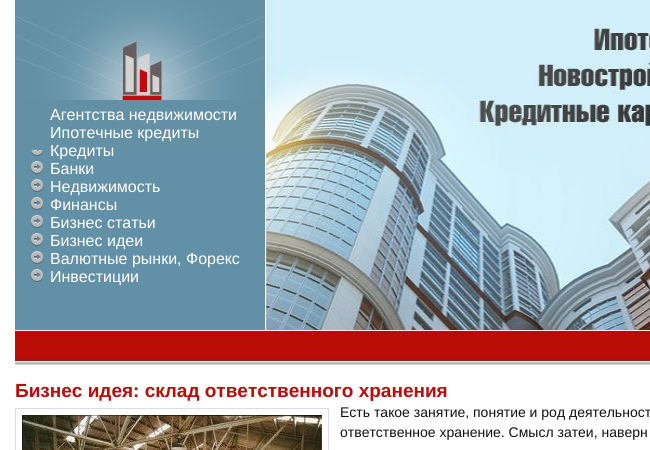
#include <cairo.h>
#include <math.h>
#include <stddef.h>


static void ink(cairo_t *ctx, unsigned color) {
    cairo_set_source_rgb(ctx, (color >> 16) / 255.0, (color >> 8 & 255) / 255.0, (color & 255) / 255.0);
}

static void paste(cairo_t *ctx, const char *path, double x, double y, double w, double h) {
    cairo_surface_t *image = cairo_image_surface_create_from_png(path);
    cairo_save(ctx);
    cairo_set_source_surface(ctx, image, x, y);
    cairo_rectangle(ctx, x, y, w, h);
    cairo_fill(ctx);
    cairo_restore(ctx);
    cairo_surface_destroy(image);
}

int main(void) {
    cairo_surface_t *surface = cairo_image_surface_create(CAIRO_FORMAT_RGB24, 650, 450);
    cairo_t *ctx = cairo_create(surface);
    cairo_font_options_t *options = cairo_font_options_create();
    cairo_font_options_set_hint_metrics(options, CAIRO_HINT_METRICS_OFF);
    cairo_font_options_set_hint_style(options, CAIRO_HINT_STYLE_NONE);
    cairo_set_font_options(ctx, options);
    cairo_set_miter_limit(ctx, 4);
    ink(ctx, 0xFFFFFF);
    cairo_paint(ctx);
    ink(ctx, 0x6290A6);
    cairo_rectangle(ctx, 15, 150, 250, 180);
    cairo_fill(ctx);
    paste(ctx, "media/1.png", 15, 0, 250, 150);
    cairo_select_font_face(ctx, "Liberation Sans", CAIRO_FONT_SLANT_NORMAL, CAIRO_FONT_WEIGHT_NORMAL);
    cairo_set_font_size(ctx, 16);
    ink(ctx, 0xFFFFFF);
    cairo_move_to(ctx, 50, 120);
    cairo_show_text(ctx, "Агентства недвижимости");
    cairo_move_to(ctx, 50, 138);
    cairo_show_text(ctx, "Ипотечные кредиты");
    paste(ctx, "media/2.png", 31, 150, 12, 6);
    cairo_move_to(ctx, 50, 156);
    cairo_show_text(ctx, "Кредиты");
    paste(ctx, "media/3.png", 31, 161, 12, 13);
    cairo_move_to(ctx, 50, 174);
    cairo_show_text(ctx, "Банки");
    paste(ctx, "media/3.png", 31, 179, 12, 13);
    cairo_move_to(ctx, 50, 192);
    cairo_show_text(ctx, "Недвижимость");
    paste(ctx, "media/3.png", 31, 197, 12, 13);
    cairo_move_to(ctx, 50, 210);
    cairo_show_text(ctx, "Финансы");
    paste(ctx, "media/3.png", 31, 215, 12, 13);
    cairo_move_to(ctx, 50, 228);
    cairo_show_text(ctx, "Бизнес статьи");
    paste(ctx, "media/3.png", 31, 233, 12, 13);
    cairo_move_to(ctx, 50, 246);
    cairo_show_text(ctx, "Бизнес идеи");
    paste(ctx, "media/3.png", 31, 251, 12, 13);
    cairo_move_to(ctx, 50, 264);
    cairo_show_text(ctx, "Валютные рынки, Форекс");
    paste(ctx, "media/3.png", 31, 269, 12, 13);
    cairo_move_to(ctx, 50, 282);
    cairo_show_text(ctx, "Инвестиции");
    paste(ctx, "media/4.png", 265, 0, 385, 330);
    paste(ctx, "media/5.png", 15, 330, 635, 35);
    cairo_select_font_face(ctx, "Liberation Sans", CAIRO_FONT_SLANT_NORMAL, CAIRO_FONT_WEIGHT_BOLD);
    cairo_set_font_size(ctx, 19);
    ink(ctx, 0xBB0C09);
    cairo_move_to(ctx, 15, 397);
    cairo_show_text(ctx, "Бизнес идея: склад ответственного хранения");
    cairo_rectangle(ctx, 15.5, 408.5, 313, 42);
    ink(ctx, 0xDDDDDD);
    cairo_set_line_width(ctx, 1);
    cairo_stroke(ctx);
    paste(ctx, "media/6.png", 22, 415, 300, 35);
    cairo_select_font_face(ctx, "Liberation Sans", CAIRO_FONT_SLANT_NORMAL, CAIRO_FONT_WEIGHT_NORMAL);
    cairo_set_font_size(ctx, 14);
    ink(ctx, 0x111111);
    cairo_move_to(ctx, 340, 417);
    cairo_show_text(ctx, "Есть такое занятие, понятие и род деятельност");
    cairo_move_to(ctx, 340, 437);
    cairo_show_text(ctx, "ответственное хранение. Смысл затеи, наверн");
    cairo_surface_write_to_png(surface, "image.png");
    cairo_font_options_destroy(options);
    cairo_destroy(ctx);
    cairo_surface_destroy(surface);
    return 0;
}
